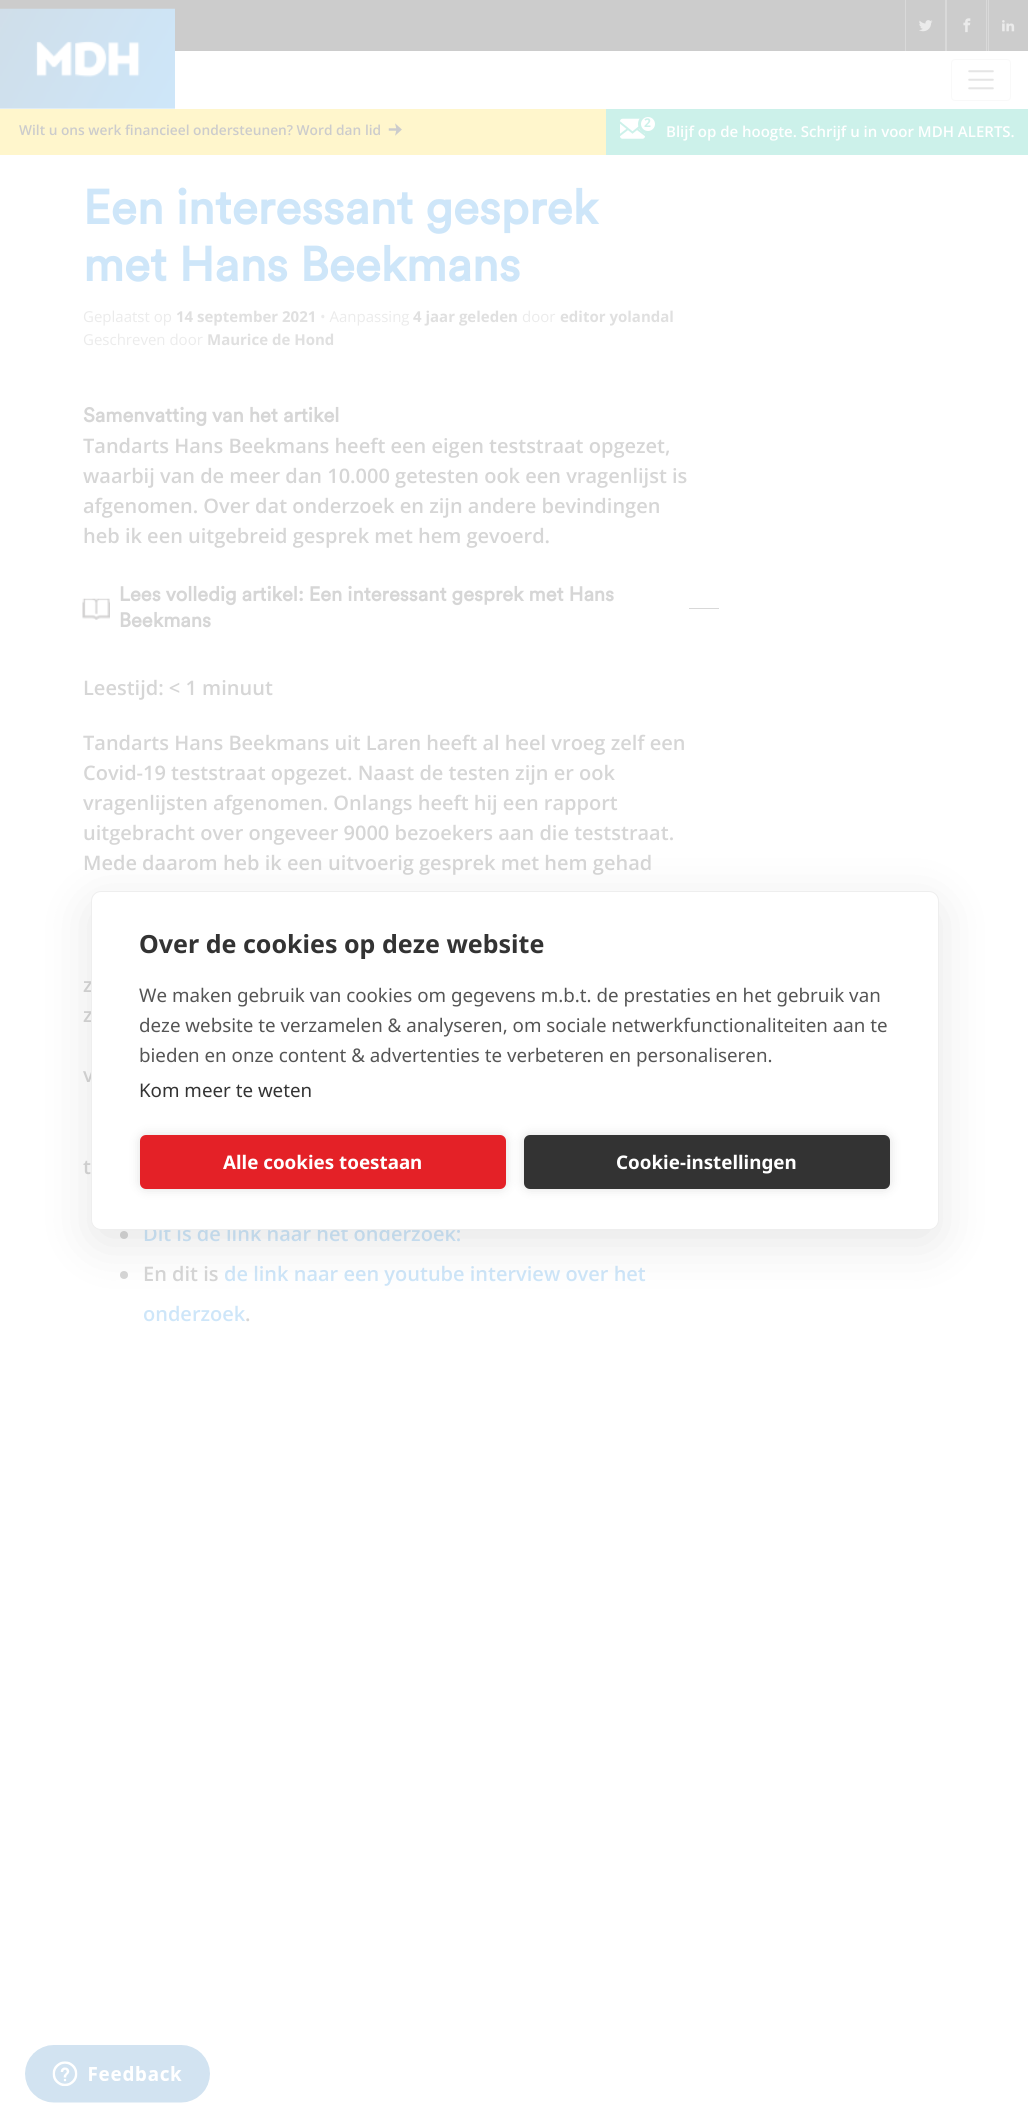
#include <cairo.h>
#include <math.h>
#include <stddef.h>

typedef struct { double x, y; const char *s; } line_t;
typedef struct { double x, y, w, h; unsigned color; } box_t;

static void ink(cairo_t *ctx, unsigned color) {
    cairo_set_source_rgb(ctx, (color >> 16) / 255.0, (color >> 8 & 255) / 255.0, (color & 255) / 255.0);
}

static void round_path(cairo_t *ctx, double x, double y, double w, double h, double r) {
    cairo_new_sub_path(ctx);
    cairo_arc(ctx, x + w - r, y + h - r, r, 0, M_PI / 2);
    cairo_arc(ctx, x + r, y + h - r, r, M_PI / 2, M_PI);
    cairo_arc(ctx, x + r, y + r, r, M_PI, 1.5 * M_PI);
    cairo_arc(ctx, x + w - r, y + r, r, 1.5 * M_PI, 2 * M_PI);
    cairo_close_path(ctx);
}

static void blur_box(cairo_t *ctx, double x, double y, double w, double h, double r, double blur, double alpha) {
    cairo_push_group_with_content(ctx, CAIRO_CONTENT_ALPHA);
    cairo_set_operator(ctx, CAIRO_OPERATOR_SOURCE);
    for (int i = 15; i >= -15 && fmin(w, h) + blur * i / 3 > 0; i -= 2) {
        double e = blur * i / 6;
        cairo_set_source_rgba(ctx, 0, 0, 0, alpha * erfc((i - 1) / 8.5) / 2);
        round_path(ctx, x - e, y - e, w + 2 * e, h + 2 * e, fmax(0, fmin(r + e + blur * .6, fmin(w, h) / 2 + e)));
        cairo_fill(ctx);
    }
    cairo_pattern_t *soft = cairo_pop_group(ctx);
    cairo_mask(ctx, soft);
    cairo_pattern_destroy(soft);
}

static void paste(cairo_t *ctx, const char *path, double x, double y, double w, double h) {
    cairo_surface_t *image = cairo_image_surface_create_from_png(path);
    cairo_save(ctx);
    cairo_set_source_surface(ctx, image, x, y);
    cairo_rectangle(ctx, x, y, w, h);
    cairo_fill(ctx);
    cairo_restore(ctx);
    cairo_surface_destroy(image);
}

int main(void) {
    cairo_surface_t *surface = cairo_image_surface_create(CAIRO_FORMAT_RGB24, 1028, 2120);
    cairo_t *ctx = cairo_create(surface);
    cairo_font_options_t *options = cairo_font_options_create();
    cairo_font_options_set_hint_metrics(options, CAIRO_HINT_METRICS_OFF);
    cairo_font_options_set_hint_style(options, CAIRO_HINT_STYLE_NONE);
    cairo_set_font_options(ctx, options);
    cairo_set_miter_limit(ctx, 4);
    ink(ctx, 0xFFFFFF);
    cairo_paint(ctx);
    {
        static const box_t items[] = {
            {0, 0, 1028, 51, 0xCCCCCC},
            {945, 0, 2, 51, 0xD9D9D9},
            {905, 0, 1, 51, 0xD9D9D9},
        };
        for (size_t i = 0; i < sizeof items / sizeof *items; i++) {
            ink(ctx, items[i].color);
            cairo_rectangle(ctx, items[i].x, items[i].y, items[i].w, items[i].h);
            cairo_fill(ctx);
        }
    }
    paste(ctx, "media/1.png", 919, 20, 14, 12);
    cairo_rectangle(ctx, 986, 0, 1, 51);
    cairo_fill(ctx);
    paste(ctx, "media/2.png", 963, 18, 8, 15);
    cairo_rectangle(ctx, 988, 0, 1, 51);
    cairo_fill(ctx);
    paste(ctx, "media/3.png", 1002, 20, 13, 12);
    paste(ctx, "media/4.png", 0, 8, 175, 101);
    round_path(ctx, 951.5, 59.5, 59, 41, 3.5);
    ink(ctx, 0xF9F9F9);
    cairo_set_line_width(ctx, 1);
    cairo_stroke(ctx);
    paste(ctx, "media/5.png", 968, 70, 26, 20);
    ink(ctx, 0xFFF6CC);
    cairo_rectangle(ctx, 0, 109, 606, 46);
    cairo_fill(ctx);
    cairo_select_font_face(ctx, "Open Sans SemiBold", CAIRO_FONT_SLANT_NORMAL, CAIRO_FONT_WEIGHT_NORMAL);
    cairo_set_font_size(ctx, 13.75);
    ink(ctx, 0xCCCCCC);
    cairo_move_to(ctx, 19, 135);
    cairo_show_text(ctx, "Wilt u ons werk financieel ondersteunen? Word dan lid");
    paste(ctx, "media/6.png", 388, 123, 14, 13);
    ink(ctx, 0xCCF1EA);
    cairo_rectangle(ctx, 606, 109, 422, 46);
    cairo_fill(ctx);
    paste(ctx, "media/7.png", 620, 118, 25, 21);
    ink(ctx, 0xFFFFFF);
    cairo_arc(ctx, 648, 124, 8.5, 0, 2 * M_PI);
    cairo_fill_preserve(ctx);
    ink(ctx, 0xCCF1EA);
    cairo_set_line_width(ctx, 3);
    cairo_stroke(ctx);
    cairo_select_font_face(ctx, "Open Sans", CAIRO_FONT_SLANT_NORMAL, CAIRO_FONT_WEIGHT_BOLD);
    cairo_set_font_size(ctx, 12);
    cairo_move_to(ctx, 644, 127);
    cairo_show_text(ctx, "2");
    cairo_select_font_face(ctx, "Open Sans SemiBold", CAIRO_FONT_SLANT_NORMAL, CAIRO_FONT_WEIGHT_NORMAL);
    cairo_set_font_size(ctx, 15);
    ink(ctx, 0xFFFFFF);
    cairo_move_to(ctx, 666, 137);
    cairo_show_text(ctx, "Blijf op de hoogte. Schrijf u in voor MDH ALERTS.");
    cairo_select_font_face(ctx, "Circular", CAIRO_FONT_SLANT_NORMAL, CAIRO_FONT_WEIGHT_BOLD);
    cairo_set_font_size(ctx, 47.9);
    ink(ctx, 0xCEE6F9);
    cairo_move_to(ctx, 83, 224);
    cairo_show_text(ctx, "Een interessant gesprek");
    cairo_move_to(ctx, 83, 281);
    cairo_show_text(ctx, "met Hans Beekmans");
    cairo_select_font_face(ctx, "Open Sans", CAIRO_FONT_SLANT_NORMAL, CAIRO_FONT_WEIGHT_NORMAL);
    cairo_set_font_size(ctx, 15);
    ink(ctx, 0xEBEBEB);
    cairo_move_to(ctx, 83, 322);
    cairo_show_text(ctx, "Geplaatst op");
    cairo_select_font_face(ctx, "Open Sans", CAIRO_FONT_SLANT_NORMAL, CAIRO_FONT_WEIGHT_BOLD);
    ink(ctx, 0xE0E0E0);
    cairo_move_to(ctx, 176, 322);
    cairo_show_text(ctx, "14 september 2021");
    cairo_select_font_face(ctx, "Open Sans", CAIRO_FONT_SLANT_NORMAL, CAIRO_FONT_WEIGHT_NORMAL);
    ink(ctx, 0xEBEBEB);
    cairo_move_to(ctx, 320, 322);
    cairo_show_text(ctx, "• Aanpassing");
    cairo_select_font_face(ctx, "Open Sans", CAIRO_FONT_SLANT_NORMAL, CAIRO_FONT_WEIGHT_BOLD);
    ink(ctx, 0xE0E0E0);
    cairo_move_to(ctx, 413, 322);
    cairo_show_text(ctx, "4 jaar geleden");
    cairo_select_font_face(ctx, "Open Sans", CAIRO_FONT_SLANT_NORMAL, CAIRO_FONT_WEIGHT_NORMAL);
    ink(ctx, 0xEBEBEB);
    cairo_move_to(ctx, 522, 322);
    cairo_show_text(ctx, "door");
    cairo_select_font_face(ctx, "Open Sans", CAIRO_FONT_SLANT_NORMAL, CAIRO_FONT_WEIGHT_BOLD);
    ink(ctx, 0xE0E0E0);
    cairo_move_to(ctx, 560, 322);
    cairo_show_text(ctx, "editor yolandal");
    cairo_select_font_face(ctx, "Open Sans", CAIRO_FONT_SLANT_NORMAL, CAIRO_FONT_WEIGHT_NORMAL);
    ink(ctx, 0xEBEBEB);
    cairo_move_to(ctx, 83, 345);
    cairo_show_text(ctx, "Geschreven door");
    cairo_select_font_face(ctx, "Open Sans", CAIRO_FONT_SLANT_NORMAL, CAIRO_FONT_WEIGHT_BOLD);
    ink(ctx, 0xE0E0E0);
    cairo_move_to(ctx, 207, 345);
    cairo_show_text(ctx, "Maurice de Hond");
    cairo_select_font_face(ctx, "Circular", CAIRO_FONT_SLANT_NORMAL, CAIRO_FONT_WEIGHT_BOLD);
    cairo_set_font_size(ctx, 20);
    ink(ctx, 0xD6D6D6);
    cairo_move_to(ctx, 83, 422);
    cairo_show_text(ctx, "Samenvatting van het artikel");
    cairo_select_font_face(ctx, "Open Sans SemiBold", CAIRO_FONT_SLANT_NORMAL, CAIRO_FONT_WEIGHT_NORMAL);
    {
        static const line_t items[] = {
            {83, 453, "Tandarts Hans Beekmans heeft een eigen teststraat opgezet,"},
            {83, 483, "waarbij van de meer dan 10.000 getesten ook een vragenlijst is"},
            {83, 513, "afgenomen. Over dat onderzoek en zijn andere bevindingen"},
            {83, 543, "heb ik een uitgebreid gesprek met hem gevoerd."},
        };
        for (size_t i = 0; i < sizeof items / sizeof *items; i++) {
            cairo_move_to(ctx, items[i].x, items[i].y);
            cairo_show_text(ctx, items[i].s);
        }
    }
    paste(ctx, "media/8.png", 82, 598, 28, 22);
    cairo_select_font_face(ctx, "Circular", CAIRO_FONT_SLANT_NORMAL, CAIRO_FONT_WEIGHT_BOLD);
    cairo_move_to(ctx, 119, 601);
    cairo_show_text(ctx, "Lees volledig artikel: Een interessant gesprek met Hans");
    cairo_move_to(ctx, 119, 627);
    cairo_show_text(ctx, "Beekmans");
    ink(ctx, 0xD8D8D8);
    cairo_rectangle(ctx, 689, 608, 30, 1);
    cairo_fill(ctx);
    cairo_select_font_face(ctx, "Open Sans SemiBold", CAIRO_FONT_SLANT_NORMAL, CAIRO_FONT_WEIGHT_NORMAL);
    ink(ctx, 0xD6D6D6);
    {
        static const line_t items[] = {
            {83, 695, "Leestijd: < 1 minuut"},
            {83, 750, "Tandarts Hans Beekmans uit Laren heeft al heel vroeg zelf een"},
            {83, 780, "Covid-19 teststraat opgezet. Naast de testen zijn er ook"},
            {83, 810, "vragenlijsten afgenomen. Onlangs heeft hij een rapport"},
            {83, 840, "uitgebracht over ongeveer 9000 bezoekers aan die teststraat."},
            {83, 870, "Mede daarom heb ik een uitvoerig gesprek met hem gehad"},
            {83, 992, "z"},
            {83, 1022, "z"},
            {83, 1082, "v"},
            {83, 1174, "t"},
        };
        for (size_t i = 0; i < sizeof items / sizeof *items; i++) {
            cairo_move_to(ctx, items[i].x, items[i].y);
            cairo_show_text(ctx, items[i].s);
        }
    }
    cairo_new_path(ctx);
    cairo_arc(ctx, 124, 1235, 4, 0, 2 * M_PI);
    cairo_fill(ctx);
    ink(ctx, 0xCEE6F9);
    cairo_move_to(ctx, 143, 1241);
    cairo_show_text(ctx, "Dit is de link naar het onderzoek:");
    ink(ctx, 0xD6D6D6);
    cairo_new_path(ctx);
    cairo_arc(ctx, 124, 1275, 4, 0, 2 * M_PI);
    cairo_fill(ctx);
    cairo_move_to(ctx, 143, 1281);
    cairo_show_text(ctx, "En dit is");
    ink(ctx, 0xCEE6F9);
    cairo_move_to(ctx, 224, 1281);
    cairo_show_text(ctx, "de link naar een youtube interview over het");
    cairo_move_to(ctx, 143, 1321);
    cairo_show_text(ctx, "onderzoek");
    ink(ctx, 0xD6D6D6);
    cairo_move_to(ctx, 245, 1321);
    cairo_show_text(ctx, ".");
    ink(ctx, 0x000000);
    blur_box(ctx, 91, 904, 848, 339, 10, 25, 0.1);
    ink(ctx, 0xFFFFFF);
    round_path(ctx, 91.5, 891.5, 847, 338, 9.5);
    cairo_fill_preserve(ctx);
    ink(ctx, 0xEEEEEE);
    cairo_set_line_width(ctx, 1);
    cairo_stroke(ctx);
    cairo_select_font_face(ctx, "Noto Sans", CAIRO_FONT_SLANT_NORMAL, CAIRO_FONT_WEIGHT_BOLD);
    cairo_set_font_size(ctx, 25);
    ink(ctx, 0x333333);
    cairo_move_to(ctx, 139, 953);
    cairo_show_text(ctx, "Over de cookies op deze website");
    cairo_select_font_face(ctx, "Noto Sans", CAIRO_FONT_SLANT_NORMAL, CAIRO_FONT_WEIGHT_NORMAL);
    cairo_set_font_size(ctx, 18.75);
    ink(ctx, 0x555555);
    {
        static const line_t items[] = {
            {139, 1002, "We maken gebruik van cookies om gegevens m.b.t. de prestaties en het gebruik van"},
            {139, 1032, "deze website te verzamelen & analyseren, om sociale netwerkfunctionaliteiten aan te"},
            {139, 1062, "bieden en onze content & advertenties te verbeteren en personaliseren."},
        };
        for (size_t i = 0; i < sizeof items / sizeof *items; i++) {
            cairo_move_to(ctx, items[i].x, items[i].y);
            cairo_show_text(ctx, items[i].s);
        }
    }
    ink(ctx, 0x333333);
    cairo_move_to(ctx, 139, 1097);
    cairo_show_text(ctx, "Kom meer te weten");
    ink(ctx, 0x000000);
    blur_box(ctx, 140, 1135, 366, 54, 6, 6, 0.12);
    ink(ctx, 0xE42127);
    round_path(ctx, 140, 1135, 366, 54, 6);
    cairo_fill(ctx);
    cairo_select_font_face(ctx, "Noto Sans", CAIRO_FONT_SLANT_NORMAL, CAIRO_FONT_WEIGHT_BOLD);
    ink(ctx, 0xFFFFFF);
    cairo_move_to(ctx, 223, 1169);
    cairo_show_text(ctx, "Alle cookies toestaan");
    ink(ctx, 0x000000);
    blur_box(ctx, 524, 1135, 366, 54, 6, 6, 0.12);
    ink(ctx, 0x333333);
    round_path(ctx, 524, 1135, 366, 54, 6);
    cairo_fill(ctx);
    ink(ctx, 0xFFFFFF);
    cairo_move_to(ctx, 616, 1169);
    cairo_show_text(ctx, "Cookie-instellingen");
    paste(ctx, "media/9.png", 25, 2045, 185, 58);
    cairo_surface_write_to_png(surface, "image.png");
    cairo_font_options_destroy(options);
    cairo_destroy(ctx);
    cairo_surface_destroy(surface);
    return 0;
}
